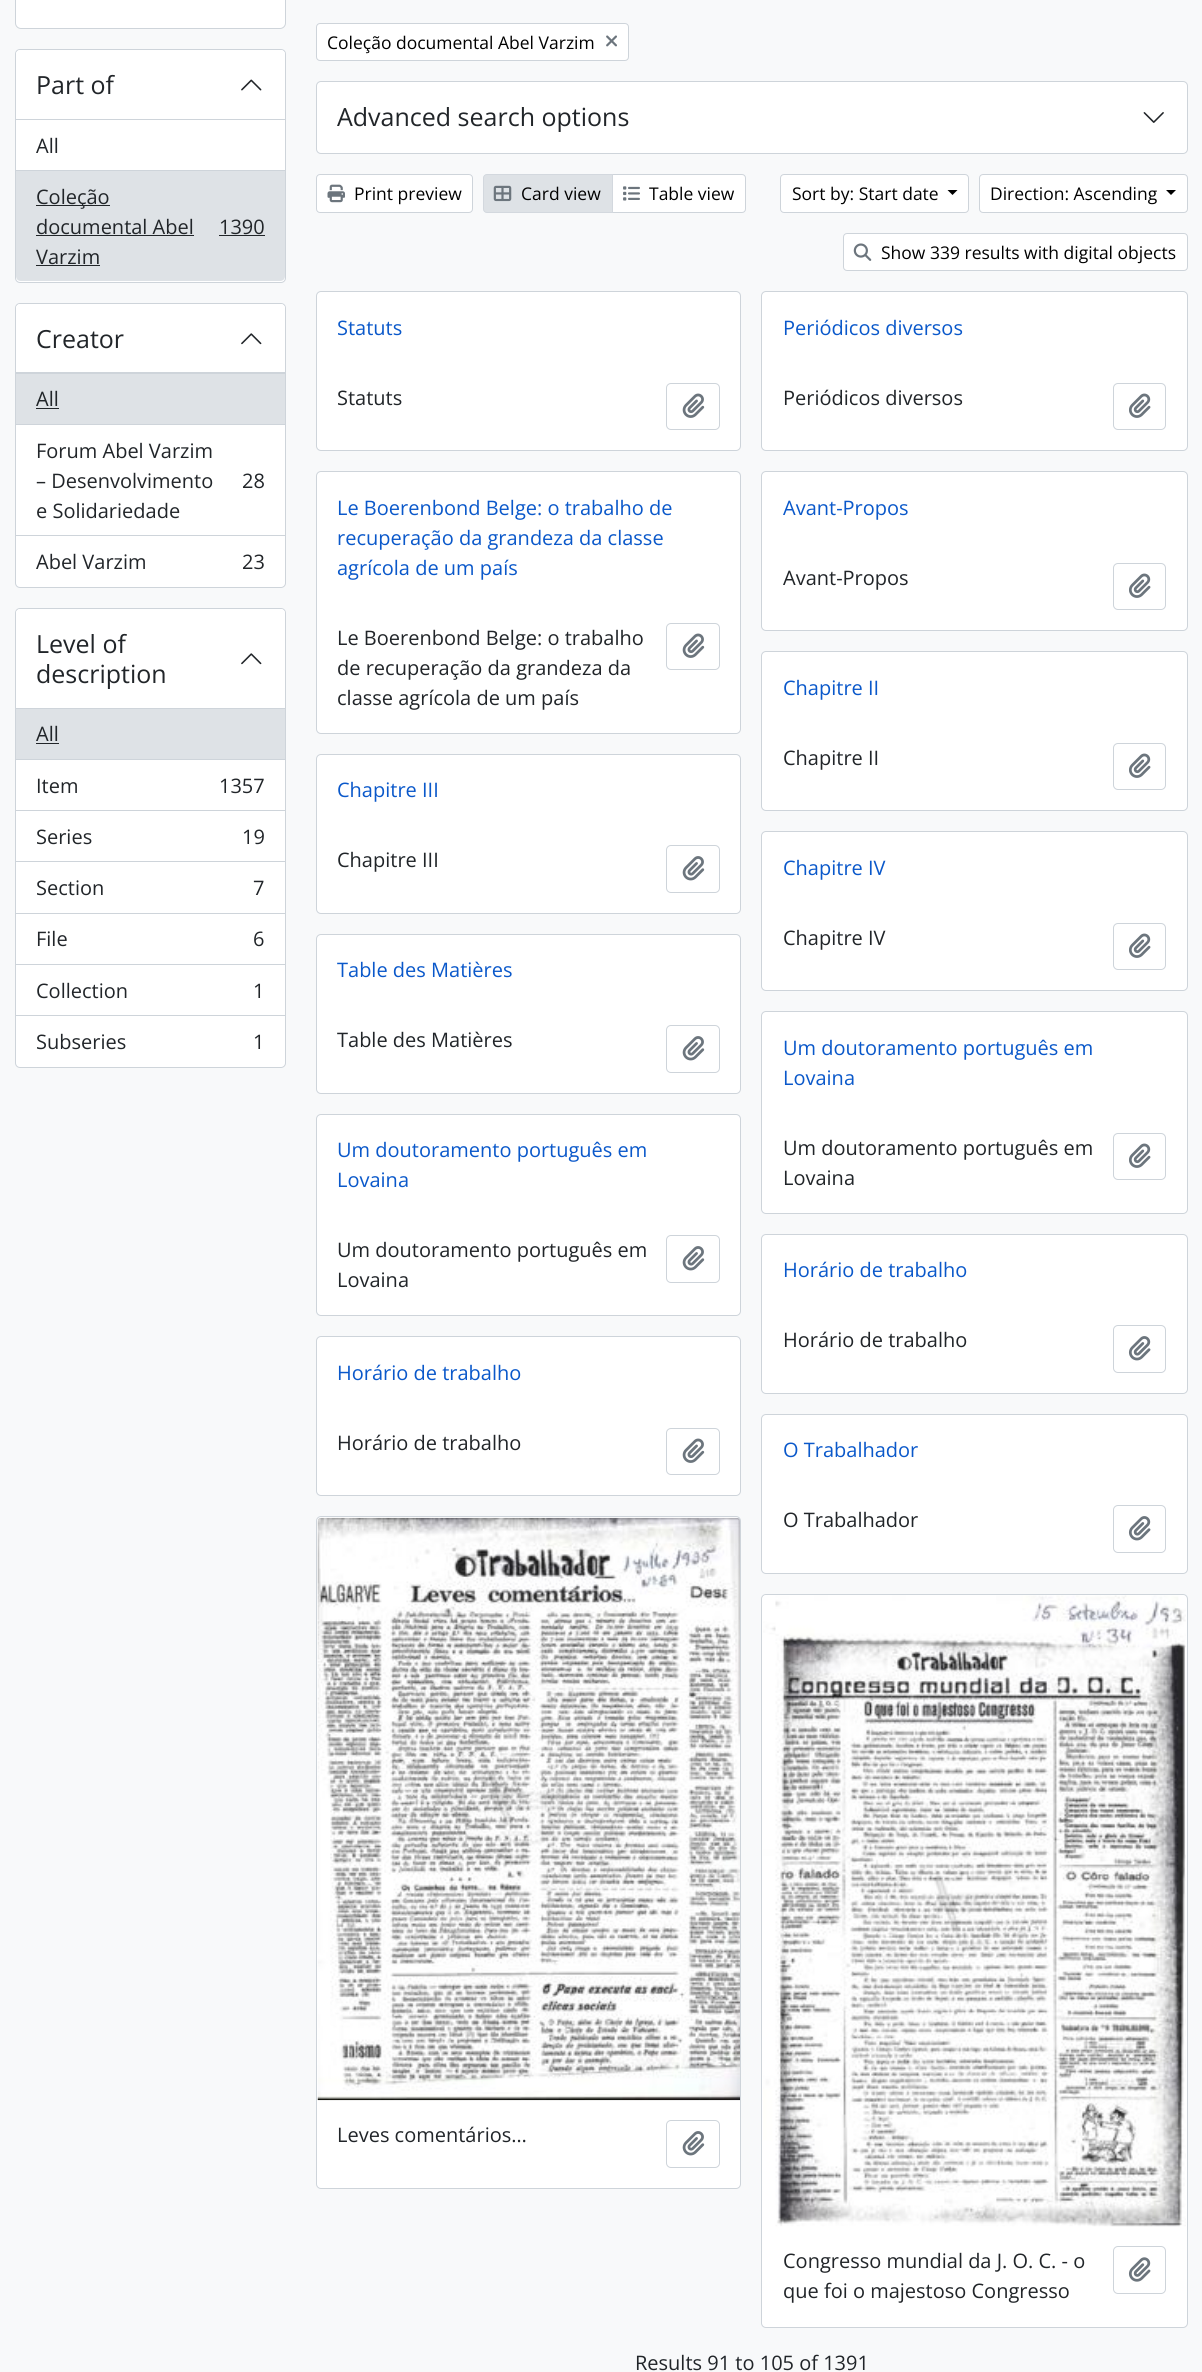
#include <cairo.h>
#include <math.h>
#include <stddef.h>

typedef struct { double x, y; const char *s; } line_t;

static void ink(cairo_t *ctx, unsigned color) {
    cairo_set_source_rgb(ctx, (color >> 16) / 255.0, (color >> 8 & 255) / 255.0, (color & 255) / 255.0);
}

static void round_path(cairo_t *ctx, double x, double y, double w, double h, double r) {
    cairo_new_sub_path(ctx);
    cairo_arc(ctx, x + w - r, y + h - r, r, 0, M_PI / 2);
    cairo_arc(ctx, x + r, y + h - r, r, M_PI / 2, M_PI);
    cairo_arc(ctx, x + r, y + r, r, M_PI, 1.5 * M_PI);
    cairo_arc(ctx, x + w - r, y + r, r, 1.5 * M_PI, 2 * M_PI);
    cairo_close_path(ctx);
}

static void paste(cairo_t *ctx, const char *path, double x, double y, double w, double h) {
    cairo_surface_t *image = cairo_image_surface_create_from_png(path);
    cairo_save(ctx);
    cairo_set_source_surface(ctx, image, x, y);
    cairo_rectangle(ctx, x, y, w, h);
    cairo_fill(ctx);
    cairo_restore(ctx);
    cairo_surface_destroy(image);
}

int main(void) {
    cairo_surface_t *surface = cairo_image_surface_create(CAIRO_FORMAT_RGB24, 1202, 2372);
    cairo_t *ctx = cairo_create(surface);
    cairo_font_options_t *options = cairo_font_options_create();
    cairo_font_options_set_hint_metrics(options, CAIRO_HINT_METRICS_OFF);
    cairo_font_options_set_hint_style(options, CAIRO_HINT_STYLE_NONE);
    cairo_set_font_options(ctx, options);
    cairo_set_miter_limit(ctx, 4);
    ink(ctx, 0xF8F9FA);
    cairo_paint(ctx);
    ink(ctx, 0xFFFFFF);
    round_path(ctx, 15.5, -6.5, 270, 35, 5.5);
    cairo_fill_preserve(ctx);
    ink(ctx, 0xCED4DA);
    cairo_set_line_width(ctx, 1);
    cairo_stroke(ctx);
    ink(ctx, 0xFFFFFF);
    round_path(ctx, 15.5, 49.5, 270, 233, 4.5);
    cairo_fill_preserve(ctx);
    ink(ctx, 0xCED4DA);
    cairo_stroke(ctx);
    ink(ctx, 0xFFFFFF);
    cairo_new_path(ctx);
    cairo_move_to(ctx, 20, 50);
    cairo_line_to(ctx, 281, 50);
    cairo_curve_to(ctx, 283, 50, 285, 52, 285, 54);
    cairo_line_to(ctx, 285, 120);
    cairo_line_to(ctx, 16, 120);
    cairo_line_to(ctx, 16, 54);
    cairo_curve_to(ctx, 16, 52, 18, 50, 20, 50);
    cairo_close_path(ctx);
    cairo_fill(ctx);
    ink(ctx, 0xCED4DA);
    cairo_rectangle(ctx, 16, 119, 269, 1);
    cairo_fill(ctx);
    cairo_select_font_face(ctx, "Open Sans", CAIRO_FONT_SLANT_NORMAL, CAIRO_FONT_WEIGHT_NORMAL);
    cairo_set_font_size(ctx, 25);
    ink(ctx, 0x212529);
    cairo_move_to(ctx, 36, 94);
    cairo_show_text(ctx, "Part of");
    paste(ctx, "media/1.png", 241, 79, 21, 12);
    ink(ctx, 0xCED4DA);
    cairo_rectangle(ctx, 16, 170, 269, 1);
    cairo_fill(ctx);
    cairo_set_font_size(ctx, 20);
    ink(ctx, 0x212529);
    cairo_move_to(ctx, 36, 153);
    cairo_show_text(ctx, "All");
    ink(ctx, 0xDEE2E6);
    cairo_new_path(ctx);
    cairo_move_to(ctx, 16, 171);
    cairo_line_to(ctx, 285, 171);
    cairo_line_to(ctx, 285, 276);
    cairo_curve_to(ctx, 285, 279, 283, 281, 280, 281);
    cairo_line_to(ctx, 21, 281);
    cairo_curve_to(ctx, 18, 281, 16, 279, 16, 276);
    cairo_close_path(ctx);
    cairo_fill(ctx);
    ink(ctx, 0x212529);
    cairo_rectangle(ctx, 36, 205, 74, 1);
    cairo_fill(ctx);
    cairo_move_to(ctx, 36, 204);
    cairo_show_text(ctx, "Coleção");
    cairo_move_to(ctx, 36, 234);
    cairo_show_text(ctx, "documental Abel");
    cairo_rectangle(ctx, 36, 235, 158, 1);
    cairo_fill(ctx);
    cairo_move_to(ctx, 219, 234);
    cairo_show_text(ctx, "1390");
    cairo_rectangle(ctx, 219, 235, 46, 1);
    cairo_fill(ctx);
    cairo_move_to(ctx, 36, 264);
    cairo_show_text(ctx, "Varzim");
    cairo_rectangle(ctx, 36, 265, 64, 1);
    cairo_fill(ctx);
    ink(ctx, 0xFFFFFF);
    round_path(ctx, 15.5, 303.5, 270, 284, 4.5);
    cairo_fill_preserve(ctx);
    ink(ctx, 0xCED4DA);
    cairo_stroke(ctx);
    ink(ctx, 0xFFFFFF);
    cairo_new_path(ctx);
    cairo_move_to(ctx, 20, 304);
    cairo_line_to(ctx, 281, 304);
    cairo_curve_to(ctx, 283, 304, 285, 306, 285, 308);
    cairo_line_to(ctx, 285, 374);
    cairo_line_to(ctx, 16, 374);
    cairo_line_to(ctx, 16, 308);
    cairo_curve_to(ctx, 16, 306, 18, 304, 20, 304);
    cairo_close_path(ctx);
    cairo_fill(ctx);
    ink(ctx, 0xCED4DA);
    cairo_rectangle(ctx, 16, 372, 269, 2);
    cairo_fill(ctx);
    cairo_set_font_size(ctx, 25);
    ink(ctx, 0x212529);
    cairo_move_to(ctx, 36, 348);
    cairo_show_text(ctx, "Creator");
    paste(ctx, "media/2.png", 241, 333, 21, 12);
    ink(ctx, 0xDEE2E6);
    cairo_rectangle(ctx, 16, 374, 269, 50);
    cairo_fill(ctx);
    ink(ctx, 0xCED4DA);
    cairo_rectangle(ctx, 16, 424, 269, 1);
    cairo_fill(ctx);
    cairo_set_font_size(ctx, 20);
    ink(ctx, 0x212529);
    cairo_move_to(ctx, 36, 406);
    cairo_show_text(ctx, "All");
    cairo_rectangle(ctx, 36, 408, 23, 1);
    cairo_fill(ctx);
    ink(ctx, 0xCED4DA);
    cairo_rectangle(ctx, 16, 535, 269, 1);
    cairo_fill(ctx);
    ink(ctx, 0x212529);
    {
        static const line_t items[] = {
            {36, 458, "Forum Abel Varzim"},
            {36, 488, "– Desenvolvimento"},
            {242, 488, "28"},
            {36, 518, "e Solidariedade"},
            {36, 569, "Abel Varzim"},
            {242, 569, "23"},
        };
        for (size_t i = 0; i < sizeof items / sizeof *items; i++) {
            cairo_move_to(ctx, items[i].x, items[i].y);
            cairo_show_text(ctx, items[i].s);
        }
    }
    ink(ctx, 0xFFFFFF);
    round_path(ctx, 15.5, 608.5, 270, 459, 4.5);
    cairo_fill_preserve(ctx);
    ink(ctx, 0xCED4DA);
    cairo_stroke(ctx);
    ink(ctx, 0xFFFFFF);
    cairo_new_path(ctx);
    cairo_move_to(ctx, 20, 609);
    cairo_line_to(ctx, 281, 609);
    cairo_curve_to(ctx, 283, 609, 285, 611, 285, 613);
    cairo_line_to(ctx, 285, 709);
    cairo_line_to(ctx, 16, 709);
    cairo_line_to(ctx, 16, 613);
    cairo_curve_to(ctx, 16, 611, 18, 609, 20, 609);
    cairo_close_path(ctx);
    cairo_fill(ctx);
    ink(ctx, 0xCED4DA);
    cairo_rectangle(ctx, 16, 708, 269, 1);
    cairo_fill(ctx);
    cairo_set_font_size(ctx, 25);
    ink(ctx, 0x212529);
    cairo_move_to(ctx, 36, 653);
    cairo_show_text(ctx, "Level of");
    paste(ctx, "media/2.png", 241, 653, 21, 12);
    cairo_move_to(ctx, 36, 683);
    cairo_show_text(ctx, "description");
    ink(ctx, 0xDEE2E6);
    cairo_rectangle(ctx, 16, 709, 269, 50);
    cairo_fill(ctx);
    ink(ctx, 0xCED4DA);
    cairo_rectangle(ctx, 16, 759, 269, 1);
    cairo_fill(ctx);
    cairo_set_font_size(ctx, 20);
    ink(ctx, 0x212529);
    cairo_move_to(ctx, 36, 741);
    cairo_show_text(ctx, "All");
    cairo_rectangle(ctx, 36, 743, 23, 1);
    cairo_fill(ctx);
    ink(ctx, 0xCED4DA);
    cairo_rectangle(ctx, 16, 810, 269, 1);
    cairo_fill(ctx);
    ink(ctx, 0x212529);
    cairo_move_to(ctx, 36, 793);
    cairo_show_text(ctx, "Item");
    cairo_move_to(ctx, 219, 793);
    cairo_show_text(ctx, "1357");
    ink(ctx, 0xCED4DA);
    cairo_rectangle(ctx, 16, 861, 269, 1);
    cairo_fill(ctx);
    ink(ctx, 0x212529);
    cairo_move_to(ctx, 36, 844);
    cairo_show_text(ctx, "Series");
    cairo_move_to(ctx, 242, 844);
    cairo_show_text(ctx, "19");
    ink(ctx, 0xCED4DA);
    cairo_rectangle(ctx, 16, 913, 269, 1);
    cairo_fill(ctx);
    ink(ctx, 0x212529);
    cairo_move_to(ctx, 36, 895);
    cairo_show_text(ctx, "Section");
    cairo_move_to(ctx, 253, 895);
    cairo_show_text(ctx, "7");
    ink(ctx, 0xCED4DA);
    cairo_rectangle(ctx, 16, 964, 269, 1);
    cairo_fill(ctx);
    ink(ctx, 0x212529);
    cairo_move_to(ctx, 36, 946);
    cairo_show_text(ctx, "File");
    cairo_move_to(ctx, 253, 946);
    cairo_show_text(ctx, "6");
    ink(ctx, 0xCED4DA);
    cairo_rectangle(ctx, 16, 1015, 269, 1);
    cairo_fill(ctx);
    ink(ctx, 0x212529);
    {
        static const line_t items[] = {
            {36, 998, "Collection"},
            {253, 998, "1"},
            {36, 1049, "Subseries"},
            {253, 1049, "1"},
        };
        for (size_t i = 0; i < sizeof items / sizeof *items; i++) {
            cairo_move_to(ctx, items[i].x, items[i].y);
            cairo_show_text(ctx, items[i].s);
        }
    }
    ink(ctx, 0xFFFFFF);
    round_path(ctx, 316.5, 23.5, 312, 37, 3.5);
    cairo_fill_preserve(ctx);
    ink(ctx, 0xCED4DA);
    cairo_stroke(ctx);
    cairo_set_font_size(ctx, 17.5);
    ink(ctx, 0x000000);
    cairo_move_to(ctx, 327, 49);
    cairo_show_text(ctx, "Coleção documental Abel Varzim");
    paste(ctx, "media/3.png", 606, 35, 11, 12);
    ink(ctx, 0xFFFFFF);
    round_path(ctx, 316.5, 81.5, 871, 72, 4.5);
    cairo_fill_preserve(ctx);
    ink(ctx, 0xCED4DA);
    cairo_stroke(ctx);
    cairo_set_font_size(ctx, 25);
    ink(ctx, 0x212529);
    cairo_move_to(ctx, 337, 126);
    cairo_show_text(ctx, "Advanced search options");
    paste(ctx, "media/4.png", 1143, 112, 21, 11);
    ink(ctx, 0xFFFFFF);
    round_path(ctx, 316.5, 174.5, 156, 38, 3.5);
    cairo_fill_preserve(ctx);
    ink(ctx, 0xCED4DA);
    cairo_stroke(ctx);
    paste(ctx, "media/5.png", 327, 184, 18, 19);
    cairo_set_font_size(ctx, 17.5);
    ink(ctx, 0x000000);
    cairo_move_to(ctx, 354, 200);
    cairo_show_text(ctx, "Print preview");
    ink(ctx, 0xFFFFFF);
    cairo_new_path(ctx);
    cairo_move_to(ctx, 611.5, 174.5);
    cairo_line_to(ctx, 742, 174.5);
    cairo_curve_to(ctx, 744, 174.5, 745.5, 176, 745.5, 178);
    cairo_line_to(ctx, 745.5, 209);
    cairo_curve_to(ctx, 745.5, 211, 744, 212.5, 742, 212.5);
    cairo_line_to(ctx, 611.5, 212.5);
    cairo_close_path(ctx);
    cairo_fill_preserve(ctx);
    ink(ctx, 0xCED4DA);
    cairo_stroke(ctx);
    ink(ctx, 0xDEE2E6);
    cairo_new_path(ctx);
    cairo_move_to(ctx, 487, 174.5);
    cairo_line_to(ctx, 612.5, 174.5);
    cairo_line_to(ctx, 612.5, 212.5);
    cairo_line_to(ctx, 487, 212.5);
    cairo_curve_to(ctx, 485, 212.5, 483.5, 211, 483.5, 209);
    cairo_line_to(ctx, 483.5, 178);
    cairo_curve_to(ctx, 483.5, 176, 485, 174.5, 487, 174.5);
    cairo_close_path(ctx);
    cairo_fill_preserve(ctx);
    ink(ctx, 0xD3D8DE);
    cairo_stroke(ctx);
    paste(ctx, "media/6.png", 493, 185, 19, 17);
    ink(ctx, 0x000000);
    cairo_move_to(ctx, 521, 200);
    cairo_show_text(ctx, "Card view");
    paste(ctx, "media/7.png", 623, 186, 17, 15);
    cairo_move_to(ctx, 649, 200);
    cairo_show_text(ctx, "Table view");
    ink(ctx, 0xFFFFFF);
    round_path(ctx, 780.5, 174.5, 188, 38, 3.5);
    cairo_fill_preserve(ctx);
    ink(ctx, 0xCED4DA);
    cairo_stroke(ctx);
    ink(ctx, 0x000000);
    cairo_move_to(ctx, 792, 200);
    cairo_show_text(ctx, "Sort by: Start date");
    cairo_new_path(ctx);
    cairo_move_to(ctx, 947.5, 190);
    cairo_line_to(ctx, 957.5, 190);
    cairo_line_to(ctx, 952.5, 195);
    cairo_close_path(ctx);
    cairo_fill(ctx);
    ink(ctx, 0xFFFFFF);
    round_path(ctx, 979.5, 174.5, 208, 38, 3.5);
    cairo_fill_preserve(ctx);
    ink(ctx, 0xCED4DA);
    cairo_stroke(ctx);
    ink(ctx, 0x000000);
    cairo_move_to(ctx, 990, 200);
    cairo_show_text(ctx, "Direction: Ascending");
    cairo_new_path(ctx);
    cairo_move_to(ctx, 1166, 190);
    cairo_line_to(ctx, 1176, 190);
    cairo_line_to(ctx, 1171, 195);
    cairo_close_path(ctx);
    cairo_fill(ctx);
    ink(ctx, 0xFFFFFF);
    round_path(ctx, 843.5, 233.5, 344, 37, 3.5);
    cairo_fill_preserve(ctx);
    ink(ctx, 0xCED4DA);
    cairo_stroke(ctx);
    paste(ctx, "media/8.png", 853, 243, 19, 18);
    ink(ctx, 0x000000);
    cairo_move_to(ctx, 881, 259);
    cairo_show_text(ctx, "Show 339 results with digital objects");
    ink(ctx, 0xFFFFFF);
    round_path(ctx, 316.5, 291.5, 424, 159, 4.5);
    cairo_fill_preserve(ctx);
    ink(ctx, 0xCED4DA);
    cairo_stroke(ctx);
    cairo_set_font_size(ctx, 20);
    ink(ctx, 0x0A58CA);
    cairo_move_to(ctx, 337, 335);
    cairo_show_text(ctx, "Statuts");
    ink(ctx, 0x212529);
    cairo_move_to(ctx, 337, 405);
    cairo_show_text(ctx, "Statuts");
    round_path(ctx, 666.5, 383.5, 53, 46, 4.5);
    ink(ctx, 0xCED4DA);
    cairo_stroke(ctx);
    paste(ctx, "media/9.png", 682, 393, 23, 25);
    ink(ctx, 0xFFFFFF);
    round_path(ctx, 761.5, 291.5, 426, 159, 4.5);
    cairo_fill_preserve(ctx);
    ink(ctx, 0xCED4DA);
    cairo_stroke(ctx);
    ink(ctx, 0x0A58CA);
    cairo_move_to(ctx, 783, 335);
    cairo_show_text(ctx, "Periódicos diversos");
    ink(ctx, 0x212529);
    cairo_move_to(ctx, 783, 405);
    cairo_show_text(ctx, "Periódicos diversos");
    round_path(ctx, 1113.5, 383.5, 52, 46, 4.5);
    ink(ctx, 0xCED4DA);
    cairo_stroke(ctx);
    paste(ctx, "media/10.png", 1129, 393, 22, 25);
    ink(ctx, 0xFFFFFF);
    round_path(ctx, 316.5, 471.5, 424, 262, 4.5);
    cairo_fill_preserve(ctx);
    ink(ctx, 0xCED4DA);
    cairo_stroke(ctx);
    ink(ctx, 0x0A58CA);
    {
        static const line_t items[] = {
            {337, 515, "Le Boerenbond Belge: o trabalho de"},
            {337, 545, "recuperação da grandeza da classe"},
            {337, 575, "agrícola de um país"},
        };
        for (size_t i = 0; i < sizeof items / sizeof *items; i++) {
            cairo_move_to(ctx, items[i].x, items[i].y);
            cairo_show_text(ctx, items[i].s);
        }
    }
    ink(ctx, 0x212529);
    {
        static const line_t items[] = {
            {337, 645, "Le Boerenbond Belge: o trabalho"},
            {337, 675, "de recuperação da grandeza da"},
            {337, 705, "classe agrícola de um país"},
        };
        for (size_t i = 0; i < sizeof items / sizeof *items; i++) {
            cairo_move_to(ctx, items[i].x, items[i].y);
            cairo_show_text(ctx, items[i].s);
        }
    }
    round_path(ctx, 666.5, 623.5, 53, 46, 4.5);
    ink(ctx, 0xCED4DA);
    cairo_stroke(ctx);
    paste(ctx, "media/9.png", 682, 633, 23, 25);
    ink(ctx, 0xFFFFFF);
    round_path(ctx, 761.5, 471.5, 426, 159, 4.5);
    cairo_fill_preserve(ctx);
    ink(ctx, 0xCED4DA);
    cairo_stroke(ctx);
    ink(ctx, 0x0A58CA);
    cairo_move_to(ctx, 783, 515);
    cairo_show_text(ctx, "Avant-Propos");
    ink(ctx, 0x212529);
    cairo_move_to(ctx, 783, 585);
    cairo_show_text(ctx, "Avant-Propos");
    round_path(ctx, 1113.5, 563.5, 52, 46, 4.5);
    ink(ctx, 0xCED4DA);
    cairo_stroke(ctx);
    paste(ctx, "media/10.png", 1129, 573, 22, 25);
    ink(ctx, 0xFFFFFF);
    round_path(ctx, 761.5, 651.5, 426, 159, 4.5);
    cairo_fill_preserve(ctx);
    ink(ctx, 0xCED4DA);
    cairo_stroke(ctx);
    ink(ctx, 0x0A58CA);
    cairo_move_to(ctx, 783, 695);
    cairo_show_text(ctx, "Chapitre II");
    ink(ctx, 0x212529);
    cairo_move_to(ctx, 783, 765);
    cairo_show_text(ctx, "Chapitre II");
    round_path(ctx, 1113.5, 743.5, 52, 46, 4.5);
    ink(ctx, 0xCED4DA);
    cairo_stroke(ctx);
    paste(ctx, "media/10.png", 1129, 753, 22, 25);
    ink(ctx, 0xFFFFFF);
    round_path(ctx, 316.5, 754.5, 424, 159, 4.5);
    cairo_fill_preserve(ctx);
    ink(ctx, 0xCED4DA);
    cairo_stroke(ctx);
    ink(ctx, 0x0A58CA);
    cairo_move_to(ctx, 337, 797);
    cairo_show_text(ctx, "Chapitre III");
    ink(ctx, 0x212529);
    cairo_move_to(ctx, 337, 867);
    cairo_show_text(ctx, "Chapitre III");
    round_path(ctx, 666.5, 845.5, 53, 47, 4.5);
    ink(ctx, 0xCED4DA);
    cairo_stroke(ctx);
    paste(ctx, "media/11.png", 682, 856, 23, 25);
    ink(ctx, 0xFFFFFF);
    round_path(ctx, 761.5, 831.5, 426, 159, 4.5);
    cairo_fill_preserve(ctx);
    ink(ctx, 0xCED4DA);
    cairo_stroke(ctx);
    ink(ctx, 0x0A58CA);
    cairo_move_to(ctx, 783, 875);
    cairo_show_text(ctx, "Chapitre IV");
    ink(ctx, 0x212529);
    cairo_move_to(ctx, 783, 945);
    cairo_show_text(ctx, "Chapitre IV");
    round_path(ctx, 1113.5, 923.5, 52, 46, 4.5);
    ink(ctx, 0xCED4DA);
    cairo_stroke(ctx);
    paste(ctx, "media/10.png", 1129, 933, 22, 25);
    ink(ctx, 0xFFFFFF);
    round_path(ctx, 316.5, 934.5, 424, 159, 4.5);
    cairo_fill_preserve(ctx);
    ink(ctx, 0xCED4DA);
    cairo_stroke(ctx);
    ink(ctx, 0x0A58CA);
    cairo_move_to(ctx, 337, 977);
    cairo_show_text(ctx, "Table des Matières");
    ink(ctx, 0x212529);
    cairo_move_to(ctx, 337, 1047);
    cairo_show_text(ctx, "Table des Matières");
    round_path(ctx, 666.5, 1025.5, 53, 47, 4.5);
    ink(ctx, 0xCED4DA);
    cairo_stroke(ctx);
    paste(ctx, "media/11.png", 682, 1036, 23, 25);
    ink(ctx, 0xFFFFFF);
    round_path(ctx, 761.5, 1011.5, 426, 202, 4.5);
    cairo_fill_preserve(ctx);
    ink(ctx, 0xCED4DA);
    cairo_stroke(ctx);
    ink(ctx, 0x0A58CA);
    cairo_move_to(ctx, 783, 1055);
    cairo_show_text(ctx, "Um doutoramento português em");
    cairo_move_to(ctx, 783, 1085);
    cairo_show_text(ctx, "Lovaina");
    ink(ctx, 0x212529);
    cairo_move_to(ctx, 783, 1155);
    cairo_show_text(ctx, "Um doutoramento português em");
    cairo_move_to(ctx, 783, 1185);
    cairo_show_text(ctx, "Lovaina");
    round_path(ctx, 1113.5, 1133.5, 52, 46, 4.5);
    ink(ctx, 0xCED4DA);
    cairo_stroke(ctx);
    paste(ctx, "media/10.png", 1129, 1143, 22, 25);
    ink(ctx, 0xFFFFFF);
    round_path(ctx, 316.5, 1114.5, 424, 201, 4.5);
    cairo_fill_preserve(ctx);
    ink(ctx, 0xCED4DA);
    cairo_stroke(ctx);
    ink(ctx, 0x0A58CA);
    cairo_move_to(ctx, 337, 1157);
    cairo_show_text(ctx, "Um doutoramento português em");
    cairo_move_to(ctx, 337, 1187);
    cairo_show_text(ctx, "Lovaina");
    ink(ctx, 0x212529);
    cairo_move_to(ctx, 337, 1257);
    cairo_show_text(ctx, "Um doutoramento português em");
    cairo_move_to(ctx, 337, 1287);
    cairo_show_text(ctx, "Lovaina");
    round_path(ctx, 666.5, 1235.5, 53, 47, 4.5);
    ink(ctx, 0xCED4DA);
    cairo_stroke(ctx);
    paste(ctx, "media/11.png", 682, 1246, 23, 25);
    ink(ctx, 0xFFFFFF);
    round_path(ctx, 761.5, 1234.5, 426, 159, 4.5);
    cairo_fill_preserve(ctx);
    ink(ctx, 0xCED4DA);
    cairo_stroke(ctx);
    ink(ctx, 0x0A58CA);
    cairo_move_to(ctx, 783, 1277);
    cairo_show_text(ctx, "Horário de trabalho");
    ink(ctx, 0x212529);
    cairo_move_to(ctx, 783, 1347);
    cairo_show_text(ctx, "Horário de trabalho");
    round_path(ctx, 1113.5, 1325.5, 52, 47, 4.5);
    ink(ctx, 0xCED4DA);
    cairo_stroke(ctx);
    paste(ctx, "media/12.png", 1128, 1336, 23, 25);
    ink(ctx, 0xFFFFFF);
    round_path(ctx, 316.5, 1336.5, 424, 159, 4.5);
    cairo_fill_preserve(ctx);
    ink(ctx, 0xCED4DA);
    cairo_stroke(ctx);
    ink(ctx, 0x0A58CA);
    cairo_move_to(ctx, 337, 1380);
    cairo_show_text(ctx, "Horário de trabalho");
    ink(ctx, 0x212529);
    cairo_move_to(ctx, 337, 1450);
    cairo_show_text(ctx, "Horário de trabalho");
    round_path(ctx, 666.5, 1428.5, 53, 46, 4.5);
    ink(ctx, 0xCED4DA);
    cairo_stroke(ctx);
    paste(ctx, "media/9.png", 682, 1438, 23, 25);
    ink(ctx, 0xFFFFFF);
    round_path(ctx, 761.5, 1414.5, 426, 159, 4.5);
    cairo_fill_preserve(ctx);
    ink(ctx, 0xCED4DA);
    cairo_stroke(ctx);
    ink(ctx, 0x0A58CA);
    cairo_move_to(ctx, 783, 1457);
    cairo_show_text(ctx, "O Trabalhador");
    ink(ctx, 0x212529);
    cairo_move_to(ctx, 783, 1527);
    cairo_show_text(ctx, "O Trabalhador");
    round_path(ctx, 1113.5, 1505.5, 52, 47, 4.5);
    ink(ctx, 0xCED4DA);
    cairo_stroke(ctx);
    paste(ctx, "media/12.png", 1128, 1516, 23, 25);
    ink(ctx, 0xFFFFFF);
    round_path(ctx, 316.5, 1516.5, 424, 672, 4.5);
    cairo_fill_preserve(ctx);
    ink(ctx, 0xCED4DA);
    cairo_stroke(ctx);
    paste(ctx, "media/13.png", 317, 1517, 423, 584);
    ink(ctx, 0x212529);
    cairo_move_to(ctx, 337, 2142);
    cairo_show_text(ctx, "Leves comentários…");
    round_path(ctx, 666.5, 2120.5, 53, 47, 4.5);
    ink(ctx, 0xCED4DA);
    cairo_stroke(ctx);
    paste(ctx, "media/11.png", 682, 2131, 23, 25);
    ink(ctx, 0xFFFFFF);
    round_path(ctx, 761.5, 1594.5, 426, 733, 4.5);
    cairo_fill_preserve(ctx);
    ink(ctx, 0xCED4DA);
    cairo_stroke(ctx);
    paste(ctx, "media/14.png", 763, 1595, 423, 632);
    ink(ctx, 0x212529);
    cairo_move_to(ctx, 783, 2268);
    cairo_show_text(ctx, "Congresso mundial da J. O. C. - o");
    cairo_move_to(ctx, 783, 2298);
    cairo_show_text(ctx, "que foi o majestoso Congresso");
    round_path(ctx, 1113.5, 2246.5, 52, 47, 4.5);
    ink(ctx, 0xCED4DA);
    cairo_stroke(ctx);
    paste(ctx, "media/15.png", 1128, 2257, 23, 25);
    ink(ctx, 0x212529);
    cairo_move_to(ctx, 635, 2370);
    cairo_show_text(ctx, "Results 91 to 105 of 1391");
    cairo_surface_write_to_png(surface, "image.png");
    cairo_font_options_destroy(options);
    cairo_destroy(ctx);
    cairo_surface_destroy(surface);
    return 0;
}
